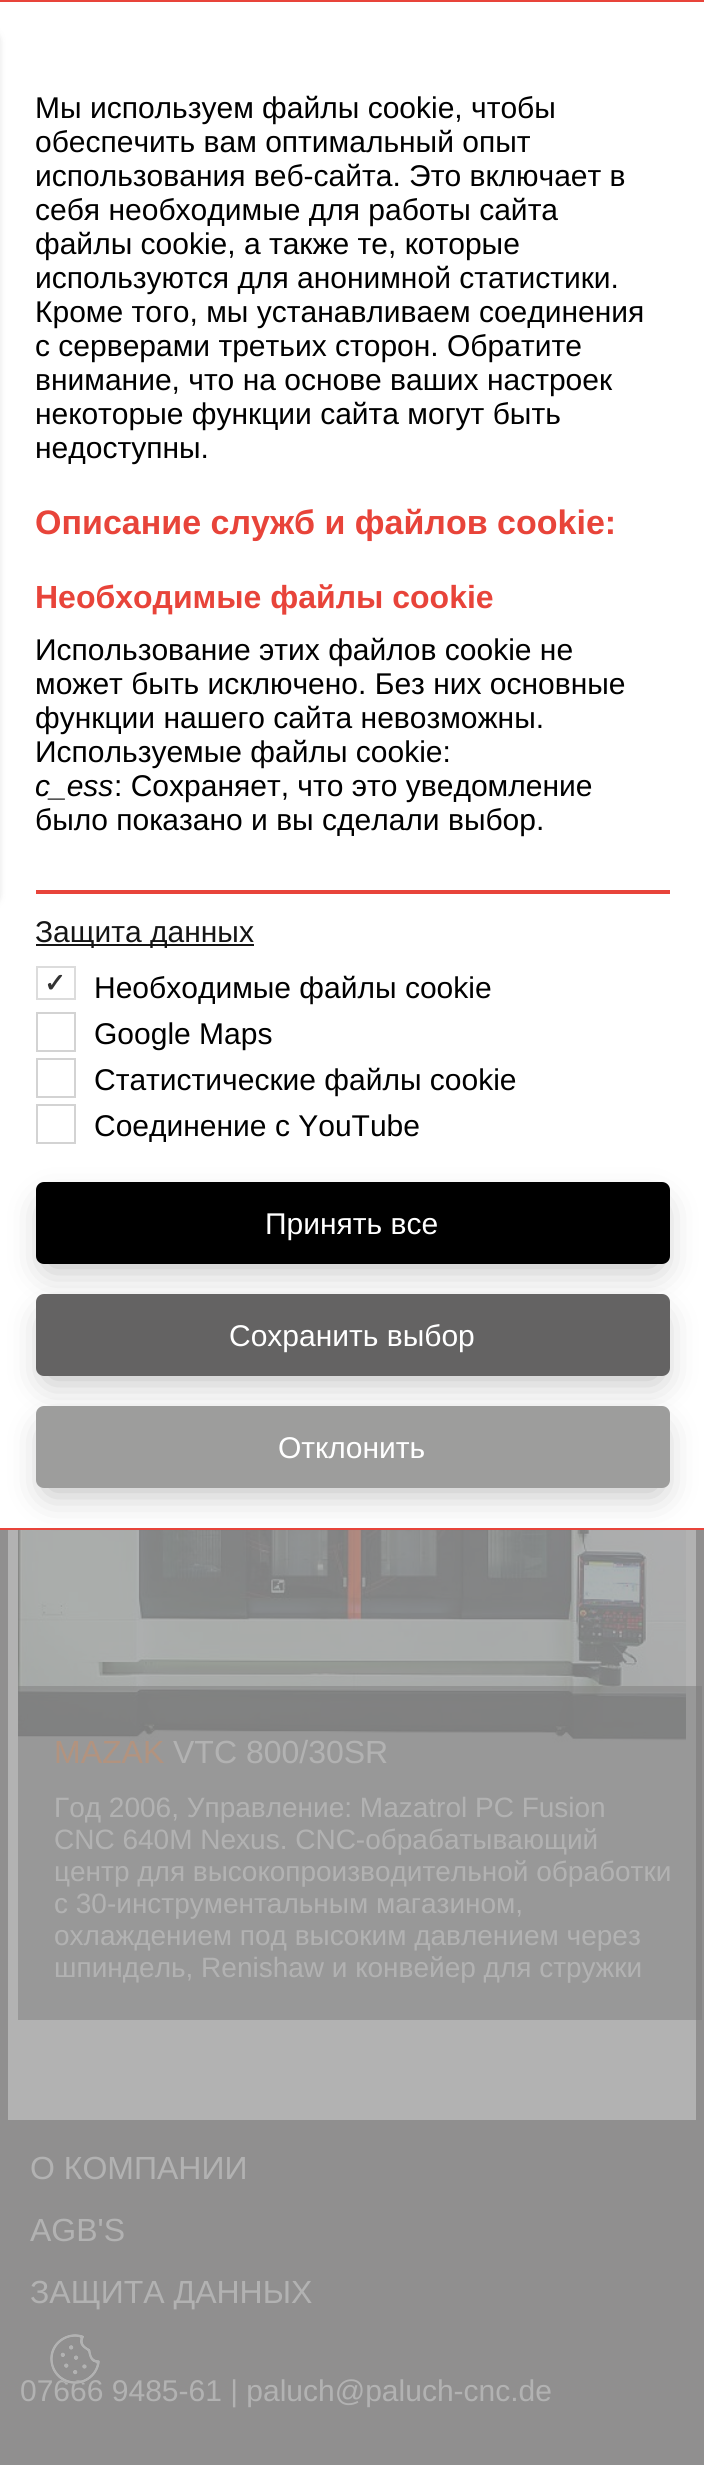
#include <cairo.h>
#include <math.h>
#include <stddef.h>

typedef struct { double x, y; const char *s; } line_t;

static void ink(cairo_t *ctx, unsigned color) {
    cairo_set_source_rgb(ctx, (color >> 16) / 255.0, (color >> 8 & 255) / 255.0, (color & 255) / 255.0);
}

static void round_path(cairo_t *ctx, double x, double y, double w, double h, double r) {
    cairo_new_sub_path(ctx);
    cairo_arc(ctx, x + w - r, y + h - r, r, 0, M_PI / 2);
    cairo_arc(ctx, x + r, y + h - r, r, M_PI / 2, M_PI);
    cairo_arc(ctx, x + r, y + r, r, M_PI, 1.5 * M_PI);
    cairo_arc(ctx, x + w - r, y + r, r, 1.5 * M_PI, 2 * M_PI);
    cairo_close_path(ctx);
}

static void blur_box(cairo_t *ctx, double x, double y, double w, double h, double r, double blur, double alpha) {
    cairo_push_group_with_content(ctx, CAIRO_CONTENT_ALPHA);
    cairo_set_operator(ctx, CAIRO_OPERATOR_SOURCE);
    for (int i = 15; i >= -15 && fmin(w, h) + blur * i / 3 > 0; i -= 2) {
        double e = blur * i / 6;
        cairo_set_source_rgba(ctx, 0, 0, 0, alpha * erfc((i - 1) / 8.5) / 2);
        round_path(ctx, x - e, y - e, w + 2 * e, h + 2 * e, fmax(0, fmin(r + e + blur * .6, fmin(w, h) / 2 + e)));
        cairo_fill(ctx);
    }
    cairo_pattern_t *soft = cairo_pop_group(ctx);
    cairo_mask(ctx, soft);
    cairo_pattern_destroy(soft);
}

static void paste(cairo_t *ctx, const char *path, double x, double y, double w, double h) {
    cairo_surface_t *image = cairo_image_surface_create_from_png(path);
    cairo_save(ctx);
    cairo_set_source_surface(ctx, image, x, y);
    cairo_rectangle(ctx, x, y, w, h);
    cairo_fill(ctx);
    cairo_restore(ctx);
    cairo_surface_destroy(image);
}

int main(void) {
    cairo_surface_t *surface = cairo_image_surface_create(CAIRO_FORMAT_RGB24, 704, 2465);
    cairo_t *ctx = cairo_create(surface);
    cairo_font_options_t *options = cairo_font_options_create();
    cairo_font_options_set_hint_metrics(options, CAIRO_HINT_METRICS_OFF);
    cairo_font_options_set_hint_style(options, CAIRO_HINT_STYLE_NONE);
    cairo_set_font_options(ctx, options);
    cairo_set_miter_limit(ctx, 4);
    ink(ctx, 0x908F8F);
    cairo_paint(ctx);
    ink(ctx, 0xFFFFFF);
    cairo_rectangle(ctx, -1, 1, 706, 1528);
    cairo_fill_preserve(ctx);
    ink(ctx, 0xE8443A);
    cairo_stroke(ctx);
    cairo_select_font_face(ctx, "Liberation Sans", CAIRO_FONT_SLANT_NORMAL, CAIRO_FONT_WEIGHT_NORMAL);
    cairo_set_font_size(ctx, 30);
    ink(ctx, 0x000000);
    {
        static const line_t items[] = {
            {35, 118, "Мы используем файлы cookie, чтобы"},
            {35, 152, "обеспечить вам оптимальный опыт"},
            {35, 186, "использования веб-сайта. Это включает в"},
            {35, 220, "себя необходимые для работы сайта"},
            {35, 254, "файлы cookie, а также те, которые"},
            {35, 288, "используются для анонимной статистики."},
            {35, 322, "Кроме того, мы устанавливаем соединения"},
            {35, 356, "с серверами третьих сторон. Обратите"},
            {35, 390, "внимание, что на основе ваших настроек"},
            {35, 424, "некоторые функции сайта могут быть"},
            {35, 458, "недоступны."},
        };
        for (size_t i = 0; i < sizeof items / sizeof *items; i++) {
            cairo_move_to(ctx, items[i].x, items[i].y);
            cairo_show_text(ctx, items[i].s);
        }
    }
    cairo_select_font_face(ctx, "Liberation Sans", CAIRO_FONT_SLANT_NORMAL, CAIRO_FONT_WEIGHT_BOLD);
    cairo_set_font_size(ctx, 34);
    ink(ctx, 0xE8443A);
    cairo_move_to(ctx, 35, 534);
    cairo_show_text(ctx, "Описание служб и файлов cookie:");
    cairo_set_font_size(ctx, 32);
    cairo_move_to(ctx, 35, 608);
    cairo_show_text(ctx, "Необходимые файлы cookie");
    cairo_select_font_face(ctx, "Liberation Sans", CAIRO_FONT_SLANT_NORMAL, CAIRO_FONT_WEIGHT_NORMAL);
    cairo_set_font_size(ctx, 30);
    ink(ctx, 0x000000);
    {
        static const line_t items[] = {
            {35, 660, "Использование этих файлов cookie не"},
            {35, 694, "может быть исключено. Без них основные"},
            {35, 728, "функции нашего сайта невозможны."},
            {35, 762, "Используемые файлы cookie:"},
        };
        for (size_t i = 0; i < sizeof items / sizeof *items; i++) {
            cairo_move_to(ctx, items[i].x, items[i].y);
            cairo_show_text(ctx, items[i].s);
        }
    }
    cairo_select_font_face(ctx, "Liberation Sans", CAIRO_FONT_SLANT_ITALIC, CAIRO_FONT_WEIGHT_NORMAL);
    cairo_move_to(ctx, 35, 796);
    cairo_show_text(ctx, "c_ess");
    cairo_select_font_face(ctx, "Liberation Sans", CAIRO_FONT_SLANT_NORMAL, CAIRO_FONT_WEIGHT_NORMAL);
    cairo_move_to(ctx, 114, 796);
    cairo_show_text(ctx, ": Сохраняет, что это уведомление");
    cairo_move_to(ctx, 35, 830);
    cairo_show_text(ctx, "было показано и вы сделали выбор.");
    ink(ctx, 0xE8443A);
    cairo_rectangle(ctx, 36, 890, 634, 4);
    cairo_fill(ctx);
    ink(ctx, 0x151515);
    cairo_rectangle(ctx, 36, 944, 218, 2);
    cairo_fill(ctx);
    cairo_move_to(ctx, 35, 942);
    cairo_show_text(ctx, "Защита данных");
    cairo_rectangle(ctx, 37, 967, 38, 32);
    ink(ctx, 0xDCDCDC);
    cairo_stroke(ctx);
    cairo_select_font_face(ctx, "DejaVu Sans", CAIRO_FONT_SLANT_NORMAL, CAIRO_FONT_WEIGHT_BOLD);
    cairo_set_font_size(ctx, 26);
    ink(ctx, 0x333333);
    cairo_move_to(ctx, 44, 992);
    cairo_show_text(ctx, "✓");
    cairo_select_font_face(ctx, "Liberation Sans", CAIRO_FONT_SLANT_NORMAL, CAIRO_FONT_WEIGHT_NORMAL);
    cairo_set_font_size(ctx, 30);
    ink(ctx, 0x000000);
    cairo_move_to(ctx, 94, 998);
    cairo_show_text(ctx, "Необходимые файлы cookie");
    cairo_rectangle(ctx, 37, 1013, 38, 38);
    ink(ctx, 0xD3D3D3);
    cairo_stroke(ctx);
    ink(ctx, 0x000000);
    cairo_move_to(ctx, 94, 1044);
    cairo_show_text(ctx, "Google Maps");
    cairo_rectangle(ctx, 37, 1059, 38, 38);
    ink(ctx, 0xD3D3D3);
    cairo_stroke(ctx);
    ink(ctx, 0x000000);
    cairo_move_to(ctx, 94, 1090);
    cairo_show_text(ctx, "Статистические файлы cookie");
    cairo_rectangle(ctx, 37, 1105, 38, 38);
    ink(ctx, 0xD3D3D3);
    cairo_stroke(ctx);
    ink(ctx, 0x000000);
    cairo_move_to(ctx, 94, 1136);
    cairo_show_text(ctx, "Соединение с YouTube");
    ink(ctx, 0x000000);
    blur_box(ctx, 48, 1208, 610, 58, 0, 19, 0.3);
    ink(ctx, 0x000000);
    round_path(ctx, 36, 1182, 634, 82, 8);
    cairo_fill(ctx);
    ink(ctx, 0xFFFFFF);
    cairo_move_to(ctx, 265, 1234);
    cairo_show_text(ctx, "Принять все");
    ink(ctx, 0x000000);
    blur_box(ctx, 48, 1320, 610, 58, 0, 19, 0.3);
    ink(ctx, 0x646363);
    round_path(ctx, 36, 1294, 634, 82, 8);
    cairo_fill(ctx);
    ink(ctx, 0xFFFFFF);
    cairo_move_to(ctx, 229, 1346);
    cairo_show_text(ctx, "Сохранить выбор");
    ink(ctx, 0xB2B2B2);
    cairo_rectangle(ctx, 8, 1530, 688, 590);
    cairo_fill(ctx);
    paste(ctx, "media/1.png", 18, 1530, 668, 213);
    ink(ctx, 0x000000);
    blur_box(ctx, 48, 1432, 610, 58, 0, 19, 0.3);
    ink(ctx, 0x9D9D9C);
    round_path(ctx, 36, 1406, 634, 82, 8);
    cairo_fill(ctx);
    ink(ctx, 0xFFFFFF);
    cairo_move_to(ctx, 278, 1458);
    cairo_show_text(ctx, "Отклонить");
    ink(ctx, 0x000000);
    blur_box(ctx, -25, 34, 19, 868, 10, 5, 0.5);
    cairo_set_source_rgba(ctx, 0.498, 0.498, 0.498, 0.5);
    cairo_rectangle(ctx, 18, 1686, 684, 334);
    cairo_fill(ctx);
    cairo_set_font_size(ctx, 32);
    ink(ctx, 0xB2937F);
    cairo_move_to(ctx, 54, 1763);
    cairo_show_text(ctx, "MAZAK");
    ink(ctx, 0xB2B2B2);
    cairo_move_to(ctx, 173, 1763);
    cairo_show_text(ctx, "VTC 800/30SR");
    cairo_set_font_size(ctx, 28);
    {
        static const line_t items[] = {
            {54, 1817, "Год 2006, Управление: Mazatrol PC Fusion"},
            {54, 1849, "CNC 640M Nexus. CNC-обрабатывающий"},
            {54, 1881, "центр для высокопроизводительной обработки"},
            {54, 1913, "с 30-инструментальным магазином,"},
            {54, 1945, "охлаждением под высоким давлением через"},
            {54, 1977, "шпиндель, Renishaw и конвейер для стружки"},
        };
        for (size_t i = 0; i < sizeof items / sizeof *items; i++) {
            cairo_move_to(ctx, items[i].x, items[i].y);
            cairo_show_text(ctx, items[i].s);
        }
    }
    cairo_set_font_size(ctx, 32);
    {
        static const line_t items[] = {
            {30, 2179, "О КОМПАНИИ"},
            {30, 2241, "AGB'S"},
            {30, 2303, "ЗАЩИТА ДАННЫХ"},
        };
        for (size_t i = 0; i < sizeof items / sizeof *items; i++) {
            cairo_move_to(ctx, items[i].x, items[i].y);
            cairo_show_text(ctx, items[i].s);
        }
    }
    cairo_set_font_size(ctx, 30);
    cairo_move_to(ctx, 20, 2401);
    cairo_show_text(ctx, "07666 9485-61 | paluch@paluch-cnc.de");
    paste(ctx, "media/2.png", 50, 2334, 50, 50);
    cairo_surface_write_to_png(surface, "image.png");
    cairo_font_options_destroy(options);
    cairo_destroy(ctx);
    cairo_surface_destroy(surface);
    return 0;
}
